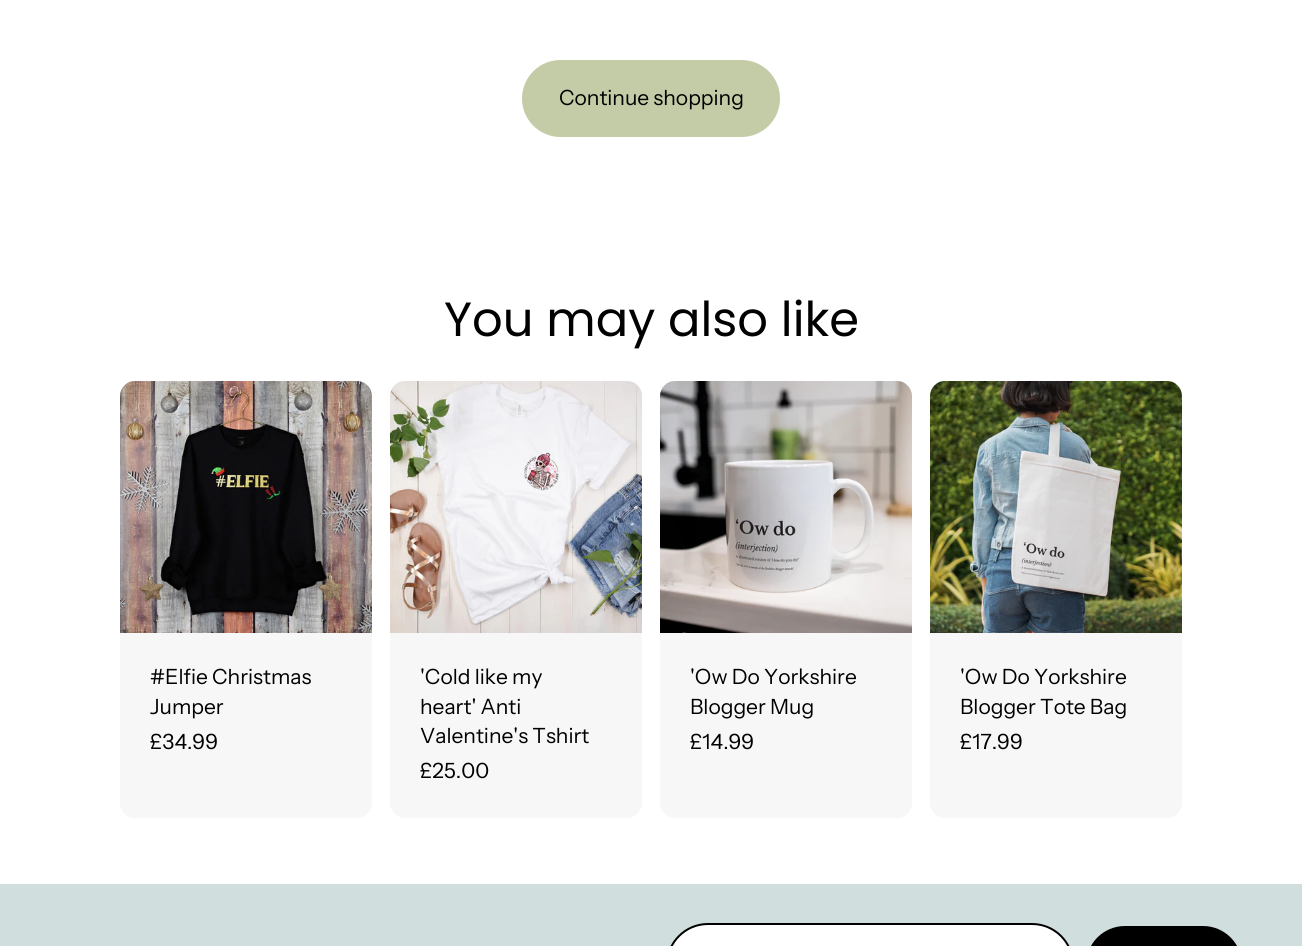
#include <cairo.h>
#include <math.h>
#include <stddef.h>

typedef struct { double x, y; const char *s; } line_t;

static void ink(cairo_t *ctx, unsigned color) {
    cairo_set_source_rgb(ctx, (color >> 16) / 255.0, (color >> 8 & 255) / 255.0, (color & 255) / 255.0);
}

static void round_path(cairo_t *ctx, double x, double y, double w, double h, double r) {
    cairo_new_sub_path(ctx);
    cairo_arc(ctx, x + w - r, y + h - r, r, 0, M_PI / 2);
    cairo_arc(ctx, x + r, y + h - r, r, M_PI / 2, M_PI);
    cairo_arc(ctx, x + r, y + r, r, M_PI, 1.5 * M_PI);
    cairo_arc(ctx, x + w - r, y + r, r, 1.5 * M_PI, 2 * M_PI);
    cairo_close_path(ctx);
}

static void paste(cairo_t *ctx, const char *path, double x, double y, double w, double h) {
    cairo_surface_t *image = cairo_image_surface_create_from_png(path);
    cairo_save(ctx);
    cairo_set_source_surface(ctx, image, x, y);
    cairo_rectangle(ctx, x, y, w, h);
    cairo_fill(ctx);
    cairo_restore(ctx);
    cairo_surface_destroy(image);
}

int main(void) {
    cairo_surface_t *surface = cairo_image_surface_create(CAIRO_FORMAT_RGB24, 1302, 946);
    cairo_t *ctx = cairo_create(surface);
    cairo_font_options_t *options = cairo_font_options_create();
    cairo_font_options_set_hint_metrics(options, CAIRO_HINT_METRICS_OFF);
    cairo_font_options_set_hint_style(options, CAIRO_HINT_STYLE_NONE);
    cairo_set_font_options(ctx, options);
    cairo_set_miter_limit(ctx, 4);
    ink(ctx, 0xFFFFFF);
    cairo_paint(ctx);
    ink(ctx, 0xC3CCA6);
    round_path(ctx, 522, 60, 258, 77, 38.5);
    cairo_fill(ctx);
    cairo_select_font_face(ctx, "Instrument Sans", CAIRO_FONT_SLANT_NORMAL, CAIRO_FONT_WEIGHT_NORMAL);
    cairo_set_font_size(ctx, 21);
    ink(ctx, 0x000000);
    cairo_move_to(ctx, 559, 105);
    cairo_show_text(ctx, "Continue shopping");
    cairo_select_font_face(ctx, "Poppins", CAIRO_FONT_SLANT_NORMAL, CAIRO_FONT_WEIGHT_NORMAL);
    cairo_set_font_size(ctx, 48);
    cairo_move_to(ctx, 444, 336);
    cairo_show_text(ctx, "You may also like");
    ink(ctx, 0xF7F7F7);
    round_path(ctx, 120, 381, 252, 437, 15);
    cairo_fill(ctx);
    paste(ctx, "media/1.png", 120, 381, 252, 252);
    cairo_select_font_face(ctx, "Instrument Sans", CAIRO_FONT_SLANT_NORMAL, CAIRO_FONT_WEIGHT_NORMAL);
    cairo_set_font_size(ctx, 21);
    ink(ctx, 0x000000);
    {
        static const line_t items[] = {
            {150, 684, "#Elfie Christmas"},
            {150, 714, "Jumper"},
            {150, 749, "£34.99"},
        };
        for (size_t i = 0; i < sizeof items / sizeof *items; i++) {
            cairo_move_to(ctx, items[i].x, items[i].y);
            cairo_show_text(ctx, items[i].s);
        }
    }
    ink(ctx, 0xF7F7F7);
    round_path(ctx, 390, 381, 252, 437, 15);
    cairo_fill(ctx);
    paste(ctx, "media/2.png", 390, 381, 252, 252);
    ink(ctx, 0x000000);
    {
        static const line_t items[] = {
            {420, 684, "'Cold like my"},
            {420, 714, "heart' Anti"},
            {420, 743, "Valentine's Tshirt"},
            {420, 778, "£25.00"},
        };
        for (size_t i = 0; i < sizeof items / sizeof *items; i++) {
            cairo_move_to(ctx, items[i].x, items[i].y);
            cairo_show_text(ctx, items[i].s);
        }
    }
    ink(ctx, 0xF7F7F7);
    round_path(ctx, 660, 381, 252, 437, 15);
    cairo_fill(ctx);
    paste(ctx, "media/3.png", 660, 381, 252, 252);
    ink(ctx, 0x000000);
    {
        static const line_t items[] = {
            {690, 684, "'Ow Do Yorkshire"},
            {690, 714, "Blogger Mug"},
            {690, 749, "£14.99"},
        };
        for (size_t i = 0; i < sizeof items / sizeof *items; i++) {
            cairo_move_to(ctx, items[i].x, items[i].y);
            cairo_show_text(ctx, items[i].s);
        }
    }
    ink(ctx, 0xF7F7F7);
    round_path(ctx, 930, 381, 252, 437, 15);
    cairo_fill(ctx);
    paste(ctx, "media/4.png", 930, 381, 252, 252);
    ink(ctx, 0x000000);
    {
        static const line_t items[] = {
            {960, 684, "'Ow Do Yorkshire"},
            {960, 714, "Blogger Tote Bag"},
            {960, 749, "£17.99"},
        };
        for (size_t i = 0; i < sizeof items / sizeof *items; i++) {
            cairo_move_to(ctx, items[i].x, items[i].y);
            cairo_show_text(ctx, items[i].s);
        }
    }
    ink(ctx, 0xD0DFDE);
    cairo_rectangle(ctx, 0, 884, 1302, 62);
    cairo_fill(ctx);
    ink(ctx, 0xFFFFFF);
    round_path(ctx, 667, 924, 406, 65, 41);
    cairo_fill_preserve(ctx);
    ink(ctx, 0x000000);
    cairo_stroke(ctx);
    round_path(ctx, 1086, 926, 156, 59, 39);
    cairo_fill(ctx);
    cairo_surface_write_to_png(surface, "image.png");
    cairo_font_options_destroy(options);
    cairo_destroy(ctx);
    cairo_surface_destroy(surface);
    return 0;
}
